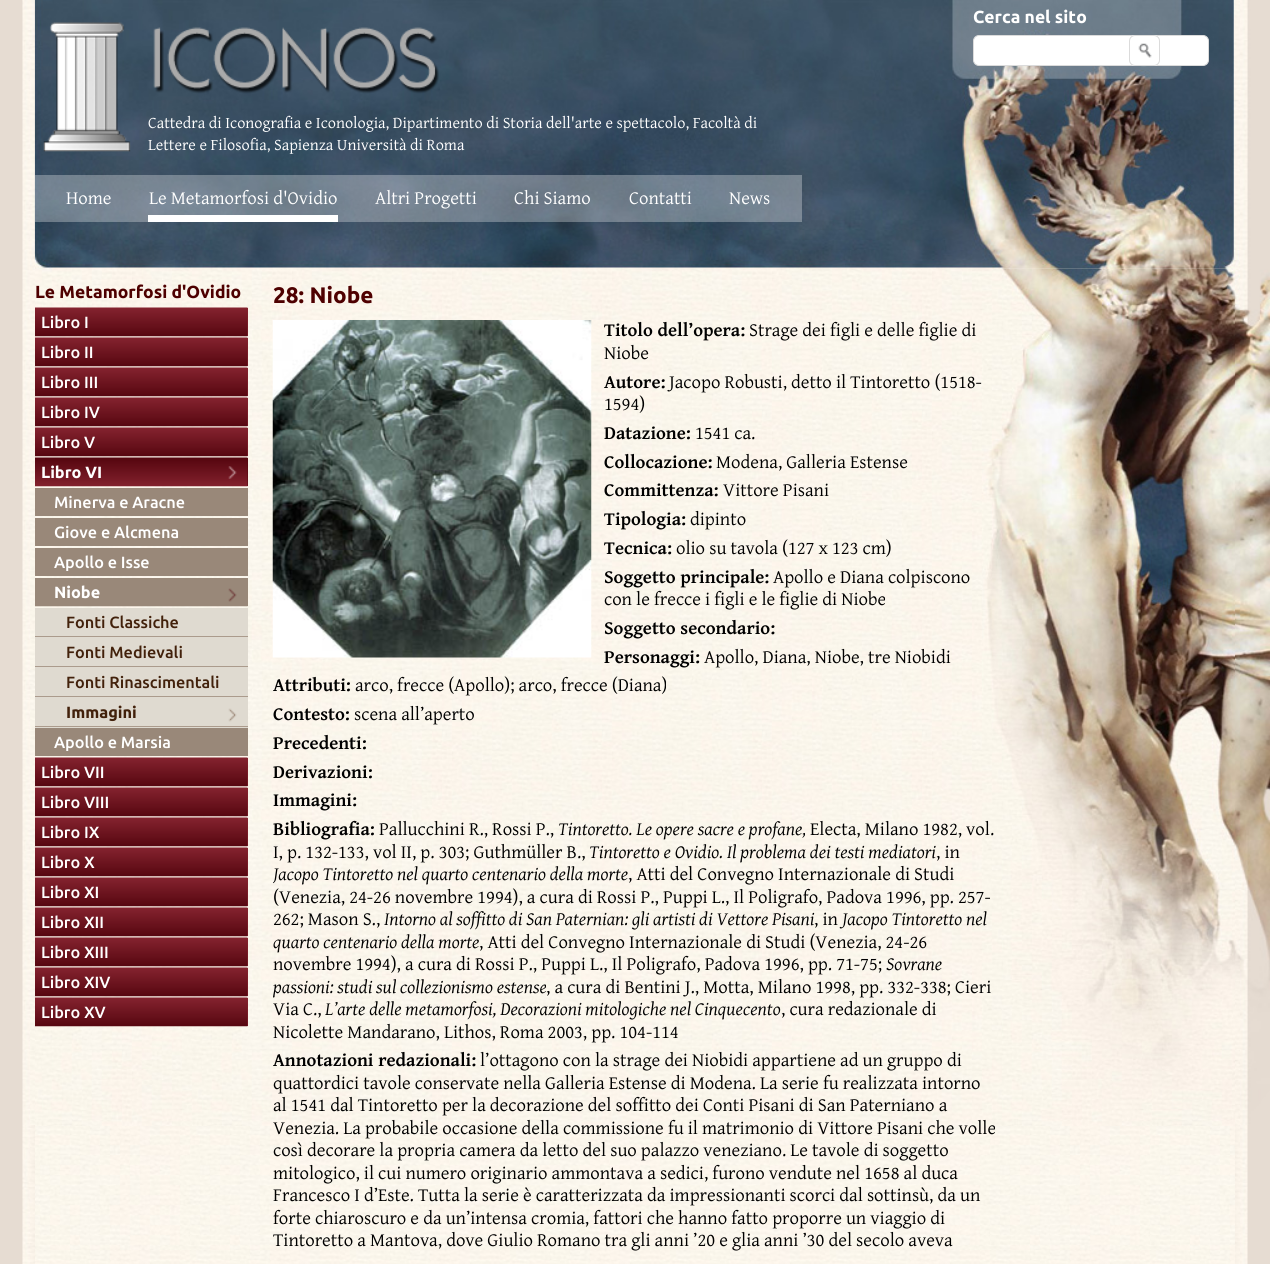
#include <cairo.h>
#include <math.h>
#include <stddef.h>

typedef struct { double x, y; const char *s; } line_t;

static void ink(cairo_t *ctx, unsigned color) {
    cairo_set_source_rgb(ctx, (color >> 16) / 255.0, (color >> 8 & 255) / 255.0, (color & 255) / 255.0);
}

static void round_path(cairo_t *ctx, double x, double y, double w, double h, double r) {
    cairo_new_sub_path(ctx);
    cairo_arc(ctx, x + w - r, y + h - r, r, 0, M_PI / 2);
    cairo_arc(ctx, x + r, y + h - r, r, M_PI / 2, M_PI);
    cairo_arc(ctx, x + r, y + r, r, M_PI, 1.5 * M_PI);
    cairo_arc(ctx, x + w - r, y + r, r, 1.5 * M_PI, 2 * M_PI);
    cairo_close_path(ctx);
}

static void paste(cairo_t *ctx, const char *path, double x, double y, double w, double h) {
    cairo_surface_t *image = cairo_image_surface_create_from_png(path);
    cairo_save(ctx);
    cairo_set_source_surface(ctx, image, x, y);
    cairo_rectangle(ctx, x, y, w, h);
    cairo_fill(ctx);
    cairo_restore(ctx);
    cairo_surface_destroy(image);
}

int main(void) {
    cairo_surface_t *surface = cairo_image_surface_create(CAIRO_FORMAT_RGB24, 1270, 1264);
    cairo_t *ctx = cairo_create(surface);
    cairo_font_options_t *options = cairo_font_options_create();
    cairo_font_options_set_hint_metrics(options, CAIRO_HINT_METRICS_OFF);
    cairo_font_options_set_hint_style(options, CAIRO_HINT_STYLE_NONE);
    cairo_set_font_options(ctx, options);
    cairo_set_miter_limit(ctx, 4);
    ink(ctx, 0xE6DCD2);
    cairo_paint(ctx);
    paste(ctx, "media/1.png", 22, 1125, 1226, 139);
    paste(ctx, "media/2.png", 22, 0, 1248, 1125);
    paste(ctx, "media/3.png", 35, 268, 1200, 996);
    paste(ctx, "media/7.png", 35, 268, 1200, 858);
    paste(ctx, "media/4.png", 35, 0, 1200, 269);
    cairo_select_font_face(ctx, "Ubuntu", CAIRO_FONT_SLANT_NORMAL, CAIRO_FONT_WEIGHT_BOLD);
    cairo_set_font_size(ctx, 17.5);
    ink(ctx, 0xFFFFFF);
    cairo_move_to(ctx, 973, 23);
    cairo_show_text(ctx, "Cerca nel sito");
    round_path(ctx, 973.5, 35.5, 235, 30, 5.5);
    cairo_fill_preserve(ctx);
    ink(ctx, 0xDBDBDB);
    cairo_set_line_width(ctx, 1);
    cairo_stroke(ctx);
    ink(ctx, 0xFFFFFF);
    round_path(ctx, 1129, 35, 31, 31, 6);
    cairo_fill(ctx);
    paste(ctx, "media/5.png", 1138, 43, 14, 24);
    round_path(ctx, 1129.5, 35.5, 30, 30, 5.5);
    ink(ctx, 0xDBDBDB);
    cairo_stroke(ctx);
    paste(ctx, "media/6.png", 43, 22, 396, 130);
    cairo_select_font_face(ctx, "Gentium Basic", CAIRO_FONT_SLANT_NORMAL, CAIRO_FONT_WEIGHT_NORMAL);
    cairo_set_font_size(ctx, 16.25);
    ink(ctx, 0xFFFFFF);
    cairo_move_to(ctx, 148, 128);
    cairo_show_text(ctx, "Cattedra di Iconografia e Iconologia, Dipartimento di Storia dell'arte e spettacolo, Facoltà di");
    cairo_move_to(ctx, 148, 150);
    cairo_show_text(ctx, "Lettere e Filosofia, Sapienza Università di Roma");
    cairo_set_source_rgba(ctx, 1, 1, 1, 0.3);
    cairo_rectangle(ctx, 35, 175, 767, 47);
    cairo_fill(ctx);
    cairo_set_font_size(ctx, 18.75);
    ink(ctx, 0xFFFFFF);
    cairo_move_to(ctx, 66, 204);
    cairo_show_text(ctx, "Home");
    cairo_rectangle(ctx, 148, 215, 190, 7);
    cairo_fill(ctx);
    {
        static const line_t items[] = {
            {149, 204, "Le Metamorfosi d'Ovidio"},
            {375, 204, "Altri Progetti"},
            {514, 204, "Chi Siamo"},
            {629, 204, "Contatti"},
            {729, 204, "News"},
        };
        for (size_t i = 0; i < sizeof items / sizeof *items; i++) {
            cairo_move_to(ctx, items[i].x, items[i].y);
            cairo_show_text(ctx, items[i].s);
        }
    }
    cairo_select_font_face(ctx, "Ubuntu", CAIRO_FONT_SLANT_NORMAL, CAIRO_FONT_WEIGHT_BOLD);
    cairo_set_font_size(ctx, 17.5);
    ink(ctx, 0x4E0000);
    cairo_move_to(ctx, 35, 298);
    cairo_show_text(ctx, "Le Metamorfosi d'Ovidio");
    ink(ctx, 0x85222E);
    cairo_rectangle(ctx, 247, 308, 1, 28);
    cairo_fill(ctx);
    paste(ctx, "media/8.png", 35, 307, 213, 30);
    cairo_select_font_face(ctx, "Ubuntu Medium", CAIRO_FONT_SLANT_NORMAL, CAIRO_FONT_WEIGHT_NORMAL);
    cairo_set_font_size(ctx, 16.25);
    ink(ctx, 0xFFFFFF);
    cairo_move_to(ctx, 41, 328);
    cairo_show_text(ctx, "Libro I");
    ink(ctx, 0x85222E);
    cairo_rectangle(ctx, 247, 338, 1, 28);
    cairo_fill(ctx);
    paste(ctx, "media/9.png", 35, 337, 213, 30);
    ink(ctx, 0xFFFFFF);
    cairo_move_to(ctx, 41, 358);
    cairo_show_text(ctx, "Libro II");
    ink(ctx, 0x85222E);
    cairo_rectangle(ctx, 247, 368, 1, 28);
    cairo_fill(ctx);
    paste(ctx, "media/10.png", 35, 367, 213, 30);
    ink(ctx, 0xFFFFFF);
    cairo_move_to(ctx, 41, 388);
    cairo_show_text(ctx, "Libro III");
    ink(ctx, 0x85222E);
    cairo_rectangle(ctx, 247, 398, 1, 28);
    cairo_fill(ctx);
    paste(ctx, "media/11.png", 35, 397, 213, 30);
    ink(ctx, 0xFFFFFF);
    cairo_move_to(ctx, 41, 418);
    cairo_show_text(ctx, "Libro IV");
    ink(ctx, 0x85222E);
    cairo_rectangle(ctx, 247, 428, 1, 28);
    cairo_fill(ctx);
    paste(ctx, "media/12.png", 35, 427, 213, 30);
    ink(ctx, 0xFFFFFF);
    cairo_move_to(ctx, 41, 448);
    cairo_show_text(ctx, "Libro V");
    ink(ctx, 0x54060F);
    cairo_rectangle(ctx, 247, 458, 1, 28);
    cairo_fill(ctx);
    paste(ctx, "media/13.png", 35, 457, 213, 30);
    cairo_select_font_face(ctx, "Ubuntu", CAIRO_FONT_SLANT_NORMAL, CAIRO_FONT_WEIGHT_BOLD);
    ink(ctx, 0xFFFFFF);
    cairo_move_to(ctx, 41, 478);
    cairo_show_text(ctx, "Libro VI");
    ink(ctx, 0x998879);
    cairo_rectangle(ctx, 35, 488, 213, 28);
    cairo_fill(ctx);
    cairo_select_font_face(ctx, "Ubuntu Medium", CAIRO_FONT_SLANT_NORMAL, CAIRO_FONT_WEIGHT_NORMAL);
    ink(ctx, 0xFFFFFF);
    cairo_move_to(ctx, 54, 508);
    cairo_show_text(ctx, "Minerva e Aracne");
    ink(ctx, 0x998879);
    cairo_rectangle(ctx, 35, 518, 213, 28);
    cairo_fill(ctx);
    ink(ctx, 0xFFFFFF);
    cairo_move_to(ctx, 54, 538);
    cairo_show_text(ctx, "Giove e Alcmena");
    ink(ctx, 0x998879);
    cairo_rectangle(ctx, 35, 548, 213, 28);
    cairo_fill(ctx);
    ink(ctx, 0xFFFFFF);
    cairo_move_to(ctx, 54, 568);
    cairo_show_text(ctx, "Apollo e Isse");
    ink(ctx, 0x998879);
    cairo_rectangle(ctx, 35, 578, 213, 28);
    cairo_fill(ctx);
    paste(ctx, "media/14.png", 35, 588, 213, 19);
    cairo_select_font_face(ctx, "Ubuntu", CAIRO_FONT_SLANT_NORMAL, CAIRO_FONT_WEIGHT_BOLD);
    ink(ctx, 0xFFFFFF);
    cairo_move_to(ctx, 54, 598);
    cairo_show_text(ctx, "Niobe");
    ink(ctx, 0xDFDAD0);
    cairo_rectangle(ctx, 35, 608, 213, 120);
    cairo_fill(ctx);
    ink(ctx, 0xAB9B8C);
    cairo_rectangle(ctx, 35, 636, 213, 1);
    cairo_fill(ctx);
    cairo_select_font_face(ctx, "Ubuntu Medium", CAIRO_FONT_SLANT_NORMAL, CAIRO_FONT_WEIGHT_NORMAL);
    ink(ctx, 0x42210B);
    cairo_move_to(ctx, 66, 628);
    cairo_show_text(ctx, "Fonti Classiche");
    ink(ctx, 0xAB9B8C);
    cairo_rectangle(ctx, 35, 666, 213, 1);
    cairo_fill(ctx);
    ink(ctx, 0x42210B);
    cairo_move_to(ctx, 66, 658);
    cairo_show_text(ctx, "Fonti Medievali");
    ink(ctx, 0xAB9B8C);
    cairo_rectangle(ctx, 35, 696, 213, 1);
    cairo_fill(ctx);
    ink(ctx, 0x42210B);
    cairo_move_to(ctx, 66, 688);
    cairo_show_text(ctx, "Fonti Rinascimentali");
    paste(ctx, "media/15.png", 228, 708, 9, 14);
    ink(ctx, 0xAB9B8C);
    cairo_rectangle(ctx, 35, 726, 213, 1);
    cairo_fill(ctx);
    cairo_select_font_face(ctx, "Ubuntu", CAIRO_FONT_SLANT_NORMAL, CAIRO_FONT_WEIGHT_BOLD);
    ink(ctx, 0x42210B);
    cairo_move_to(ctx, 66, 718);
    cairo_show_text(ctx, "Immagini");
    ink(ctx, 0x998879);
    cairo_rectangle(ctx, 35, 728, 213, 28);
    cairo_fill(ctx);
    cairo_select_font_face(ctx, "Ubuntu Medium", CAIRO_FONT_SLANT_NORMAL, CAIRO_FONT_WEIGHT_NORMAL);
    ink(ctx, 0xFFFFFF);
    cairo_move_to(ctx, 54, 748);
    cairo_show_text(ctx, "Apollo e Marsia");
    ink(ctx, 0x85222E);
    cairo_rectangle(ctx, 247, 758, 1, 28);
    cairo_fill(ctx);
    paste(ctx, "media/16.png", 35, 757, 213, 30);
    ink(ctx, 0xFFFFFF);
    cairo_move_to(ctx, 41, 778);
    cairo_show_text(ctx, "Libro VII");
    ink(ctx, 0x85222E);
    cairo_rectangle(ctx, 247, 788, 1, 28);
    cairo_fill(ctx);
    paste(ctx, "media/8.png", 35, 787, 213, 30);
    ink(ctx, 0xFFFFFF);
    cairo_move_to(ctx, 41, 808);
    cairo_show_text(ctx, "Libro VIII");
    ink(ctx, 0x85222E);
    cairo_rectangle(ctx, 247, 818, 1, 28);
    cairo_fill(ctx);
    paste(ctx, "media/9.png", 35, 817, 213, 30);
    ink(ctx, 0xFFFFFF);
    cairo_move_to(ctx, 41, 838);
    cairo_show_text(ctx, "Libro IX");
    ink(ctx, 0x85222E);
    cairo_rectangle(ctx, 247, 848, 1, 28);
    cairo_fill(ctx);
    paste(ctx, "media/10.png", 35, 847, 213, 30);
    ink(ctx, 0xFFFFFF);
    cairo_move_to(ctx, 41, 868);
    cairo_show_text(ctx, "Libro X");
    ink(ctx, 0x85222E);
    cairo_rectangle(ctx, 247, 878, 1, 28);
    cairo_fill(ctx);
    paste(ctx, "media/11.png", 35, 877, 213, 30);
    ink(ctx, 0xFFFFFF);
    cairo_move_to(ctx, 41, 898);
    cairo_show_text(ctx, "Libro XI");
    ink(ctx, 0x85222E);
    cairo_rectangle(ctx, 247, 908, 1, 28);
    cairo_fill(ctx);
    paste(ctx, "media/12.png", 35, 907, 213, 30);
    ink(ctx, 0xFFFFFF);
    cairo_move_to(ctx, 41, 928);
    cairo_show_text(ctx, "Libro XII");
    ink(ctx, 0x85222E);
    cairo_rectangle(ctx, 247, 938, 1, 28);
    cairo_fill(ctx);
    paste(ctx, "media/17.png", 35, 937, 213, 30);
    ink(ctx, 0xFFFFFF);
    cairo_move_to(ctx, 41, 958);
    cairo_show_text(ctx, "Libro XIII");
    ink(ctx, 0x85222E);
    cairo_rectangle(ctx, 247, 968, 1, 28);
    cairo_fill(ctx);
    paste(ctx, "media/18.png", 35, 967, 213, 30);
    ink(ctx, 0xFFFFFF);
    cairo_move_to(ctx, 41, 988);
    cairo_show_text(ctx, "Libro XIV");
    ink(ctx, 0x85222E);
    cairo_rectangle(ctx, 247, 998, 1, 28);
    cairo_fill(ctx);
    paste(ctx, "media/19.png", 35, 997, 213, 30);
    ink(ctx, 0xFFFFFF);
    cairo_move_to(ctx, 41, 1018);
    cairo_show_text(ctx, "Libro XV");
    cairo_select_font_face(ctx, "Ubuntu", CAIRO_FONT_SLANT_NORMAL, CAIRO_FONT_WEIGHT_BOLD);
    cairo_set_font_size(ctx, 22.5);
    ink(ctx, 0x4E0000);
    cairo_move_to(ctx, 273, 303);
    cairo_show_text(ctx, "28: Niobe");
    paste(ctx, "media/20.png", 272, 320, 320, 338);
    cairo_select_font_face(ctx, "Gentium Basic", CAIRO_FONT_SLANT_NORMAL, CAIRO_FONT_WEIGHT_BOLD);
    cairo_set_font_size(ctx, 18.75);
    ink(ctx, 0x000000);
    cairo_move_to(ctx, 604, 336);
    cairo_show_text(ctx, "Titolo dell’opera:");
    cairo_select_font_face(ctx, "Gentium Basic", CAIRO_FONT_SLANT_NORMAL, CAIRO_FONT_WEIGHT_NORMAL);
    cairo_move_to(ctx, 749, 336);
    cairo_show_text(ctx, "Strage dei figli e delle figlie di");
    cairo_move_to(ctx, 604, 359);
    cairo_show_text(ctx, "Niobe");
    cairo_select_font_face(ctx, "Gentium Basic", CAIRO_FONT_SLANT_NORMAL, CAIRO_FONT_WEIGHT_BOLD);
    cairo_move_to(ctx, 604, 388);
    cairo_show_text(ctx, "Autore:");
    cairo_select_font_face(ctx, "Gentium Basic", CAIRO_FONT_SLANT_NORMAL, CAIRO_FONT_WEIGHT_NORMAL);
    cairo_move_to(ctx, 669, 388);
    cairo_show_text(ctx, "Jacopo Robusti, detto il Tintoretto (1518-");
    cairo_move_to(ctx, 604, 410);
    cairo_show_text(ctx, "1594)");
    cairo_select_font_face(ctx, "Gentium Basic", CAIRO_FONT_SLANT_NORMAL, CAIRO_FONT_WEIGHT_BOLD);
    cairo_move_to(ctx, 604, 439);
    cairo_show_text(ctx, "Datazione:");
    cairo_select_font_face(ctx, "Gentium Basic", CAIRO_FONT_SLANT_NORMAL, CAIRO_FONT_WEIGHT_NORMAL);
    cairo_move_to(ctx, 695, 439);
    cairo_show_text(ctx, "1541 ca.");
    cairo_select_font_face(ctx, "Gentium Basic", CAIRO_FONT_SLANT_NORMAL, CAIRO_FONT_WEIGHT_BOLD);
    cairo_move_to(ctx, 604, 468);
    cairo_show_text(ctx, "Collocazione:");
    cairo_select_font_face(ctx, "Gentium Basic", CAIRO_FONT_SLANT_NORMAL, CAIRO_FONT_WEIGHT_NORMAL);
    cairo_move_to(ctx, 716, 468);
    cairo_show_text(ctx, "Modena, Galleria Estense");
    cairo_select_font_face(ctx, "Gentium Basic", CAIRO_FONT_SLANT_NORMAL, CAIRO_FONT_WEIGHT_BOLD);
    cairo_move_to(ctx, 604, 496);
    cairo_show_text(ctx, "Committenza:");
    cairo_select_font_face(ctx, "Gentium Basic", CAIRO_FONT_SLANT_NORMAL, CAIRO_FONT_WEIGHT_NORMAL);
    cairo_move_to(ctx, 723, 496);
    cairo_show_text(ctx, "Vittore Pisani");
    cairo_select_font_face(ctx, "Gentium Basic", CAIRO_FONT_SLANT_NORMAL, CAIRO_FONT_WEIGHT_BOLD);
    cairo_move_to(ctx, 604, 525);
    cairo_show_text(ctx, "Tipologia:");
    cairo_select_font_face(ctx, "Gentium Basic", CAIRO_FONT_SLANT_NORMAL, CAIRO_FONT_WEIGHT_NORMAL);
    cairo_move_to(ctx, 690, 525);
    cairo_show_text(ctx, "dipinto");
    cairo_select_font_face(ctx, "Gentium Basic", CAIRO_FONT_SLANT_NORMAL, CAIRO_FONT_WEIGHT_BOLD);
    cairo_move_to(ctx, 604, 554);
    cairo_show_text(ctx, "Tecnica:");
    cairo_select_font_face(ctx, "Gentium Basic", CAIRO_FONT_SLANT_NORMAL, CAIRO_FONT_WEIGHT_NORMAL);
    cairo_move_to(ctx, 676, 554);
    cairo_show_text(ctx, "olio su tavola (127 x 123 cm)");
    cairo_select_font_face(ctx, "Gentium Basic", CAIRO_FONT_SLANT_NORMAL, CAIRO_FONT_WEIGHT_BOLD);
    cairo_move_to(ctx, 604, 583);
    cairo_show_text(ctx, "Soggetto principale:");
    cairo_select_font_face(ctx, "Gentium Basic", CAIRO_FONT_SLANT_NORMAL, CAIRO_FONT_WEIGHT_NORMAL);
    cairo_move_to(ctx, 773, 583);
    cairo_show_text(ctx, "Apollo e Diana colpiscono");
    cairo_move_to(ctx, 604, 605);
    cairo_show_text(ctx, "con le frecce i figli e le figlie di Niobe");
    cairo_select_font_face(ctx, "Gentium Basic", CAIRO_FONT_SLANT_NORMAL, CAIRO_FONT_WEIGHT_BOLD);
    cairo_move_to(ctx, 604, 634);
    cairo_show_text(ctx, "Soggetto secondario:");
    cairo_move_to(ctx, 604, 663);
    cairo_show_text(ctx, "Personaggi:");
    cairo_select_font_face(ctx, "Gentium Basic", CAIRO_FONT_SLANT_NORMAL, CAIRO_FONT_WEIGHT_NORMAL);
    cairo_move_to(ctx, 704, 663);
    cairo_show_text(ctx, "Apollo, Diana, Niobe, tre Niobidi");
    cairo_select_font_face(ctx, "Gentium Basic", CAIRO_FONT_SLANT_NORMAL, CAIRO_FONT_WEIGHT_BOLD);
    cairo_move_to(ctx, 273, 691);
    cairo_show_text(ctx, "Attributi:");
    cairo_select_font_face(ctx, "Gentium Basic", CAIRO_FONT_SLANT_NORMAL, CAIRO_FONT_WEIGHT_NORMAL);
    cairo_move_to(ctx, 355, 691);
    cairo_show_text(ctx, "arco, frecce (Apollo); arco, frecce (Diana)");
    cairo_select_font_face(ctx, "Gentium Basic", CAIRO_FONT_SLANT_NORMAL, CAIRO_FONT_WEIGHT_BOLD);
    cairo_move_to(ctx, 273, 720);
    cairo_show_text(ctx, "Contesto:");
    cairo_select_font_face(ctx, "Gentium Basic", CAIRO_FONT_SLANT_NORMAL, CAIRO_FONT_WEIGHT_NORMAL);
    cairo_move_to(ctx, 354, 720);
    cairo_show_text(ctx, "scena all’aperto");
    cairo_select_font_face(ctx, "Gentium Basic", CAIRO_FONT_SLANT_NORMAL, CAIRO_FONT_WEIGHT_BOLD);
    {
        static const line_t items[] = {
            {273, 749, "Precedenti:"},
            {273, 778, "Derivazioni:"},
            {273, 806, "Immagini:"},
            {273, 835, "Bibliografia:"},
        };
        for (size_t i = 0; i < sizeof items / sizeof *items; i++) {
            cairo_move_to(ctx, items[i].x, items[i].y);
            cairo_show_text(ctx, items[i].s);
        }
    }
    cairo_select_font_face(ctx, "Gentium Basic", CAIRO_FONT_SLANT_NORMAL, CAIRO_FONT_WEIGHT_NORMAL);
    cairo_move_to(ctx, 379, 835);
    cairo_show_text(ctx, "Pallucchini R., Rossi P.,");
    cairo_select_font_face(ctx, "Gentium Basic", CAIRO_FONT_SLANT_ITALIC, CAIRO_FONT_WEIGHT_NORMAL);
    cairo_move_to(ctx, 558, 835);
    cairo_show_text(ctx, "Tintoretto. Le opere sacre e profane,");
    cairo_select_font_face(ctx, "Gentium Basic", CAIRO_FONT_SLANT_NORMAL, CAIRO_FONT_WEIGHT_NORMAL);
    cairo_move_to(ctx, 810, 835);
    cairo_show_text(ctx, "Electa, Milano 1982, vol.");
    cairo_move_to(ctx, 273, 858);
    cairo_show_text(ctx, "I, p. 132-133, vol II, p. 303; Guthmüller B.,");
    cairo_select_font_face(ctx, "Gentium Basic", CAIRO_FONT_SLANT_ITALIC, CAIRO_FONT_WEIGHT_NORMAL);
    cairo_move_to(ctx, 589, 858);
    cairo_show_text(ctx, "Tintoretto e Ovidio. Il problema dei testi mediatori");
    cairo_select_font_face(ctx, "Gentium Basic", CAIRO_FONT_SLANT_NORMAL, CAIRO_FONT_WEIGHT_NORMAL);
    cairo_move_to(ctx, 936, 858);
    cairo_show_text(ctx, ", in");
    cairo_save(ctx);
    cairo_rectangle(ctx, 273, 320, 725, 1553);
    cairo_clip(ctx);
    cairo_select_font_face(ctx, "Gentium Basic", CAIRO_FONT_SLANT_ITALIC, CAIRO_FONT_WEIGHT_NORMAL);
    cairo_move_to(ctx, 273, 880);
    cairo_show_text(ctx, "Jacopo Tintoretto nel quarto centenario della morte");
    cairo_restore(ctx);
    {
        static const line_t items[] = {
            {628, 880, ", Atti del Convegno Internazionale di Studi"},
            {273, 903, "(Venezia, 24-26 novembre 1994), a cura di Rossi P., Puppi L., Il Poligrafo, Padova 1996, pp. 257-"},
            {273, 925, "262; Mason S.,"},
        };
        for (size_t i = 0; i < sizeof items / sizeof *items; i++) {
            cairo_move_to(ctx, items[i].x, items[i].y);
            cairo_show_text(ctx, items[i].s);
        }
    }
    cairo_select_font_face(ctx, "Gentium Basic", CAIRO_FONT_SLANT_ITALIC, CAIRO_FONT_WEIGHT_NORMAL);
    cairo_move_to(ctx, 384, 925);
    cairo_show_text(ctx, "Intorno al soffitto di San Paternian: gli artisti di Vettore Pisani");
    cairo_select_font_face(ctx, "Gentium Basic", CAIRO_FONT_SLANT_NORMAL, CAIRO_FONT_WEIGHT_NORMAL);
    cairo_move_to(ctx, 814, 925);
    cairo_show_text(ctx, ", in");
    cairo_select_font_face(ctx, "Gentium Basic", CAIRO_FONT_SLANT_ITALIC, CAIRO_FONT_WEIGHT_NORMAL);
    cairo_move_to(ctx, 842, 925);
    cairo_show_text(ctx, "Jacopo Tintoretto nel");
    cairo_move_to(ctx, 273, 948);
    cairo_show_text(ctx, "quarto centenario della morte");
    cairo_select_font_face(ctx, "Gentium Basic", CAIRO_FONT_SLANT_NORMAL, CAIRO_FONT_WEIGHT_NORMAL);
    cairo_move_to(ctx, 479, 948);
    cairo_show_text(ctx, ", Atti del Convegno Internazionale di Studi (Venezia, 24-26");
    cairo_move_to(ctx, 273, 970);
    cairo_show_text(ctx, "novembre 1994), a cura di Rossi P., Puppi L., Il Poligrafo, Padova 1996, pp. 71-75;");
    cairo_select_font_face(ctx, "Gentium Basic", CAIRO_FONT_SLANT_ITALIC, CAIRO_FONT_WEIGHT_NORMAL);
    cairo_move_to(ctx, 886, 970);
    cairo_show_text(ctx, "Sovrane");
    cairo_save(ctx);
    cairo_rectangle(ctx, 273, 320, 725, 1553);
    cairo_clip(ctx);
    cairo_move_to(ctx, 273, 993);
    cairo_show_text(ctx, "passioni: studi sul collezionismo estense");
    cairo_restore(ctx);
    cairo_select_font_face(ctx, "Gentium Basic", CAIRO_FONT_SLANT_NORMAL, CAIRO_FONT_WEIGHT_NORMAL);
    cairo_move_to(ctx, 546, 993);
    cairo_show_text(ctx, ", a cura di Bentini J., Motta, Milano 1998, pp. 332-338; Cieri");
    cairo_move_to(ctx, 273, 1015);
    cairo_show_text(ctx, "Via C.,");
    cairo_select_font_face(ctx, "Gentium Basic", CAIRO_FONT_SLANT_ITALIC, CAIRO_FONT_WEIGHT_NORMAL);
    cairo_move_to(ctx, 325, 1015);
    cairo_show_text(ctx, "L’arte delle metamorfosi, Decorazioni mitologiche nel Cinquecento");
    cairo_select_font_face(ctx, "Gentium Basic", CAIRO_FONT_SLANT_NORMAL, CAIRO_FONT_WEIGHT_NORMAL);
    cairo_move_to(ctx, 781, 1015);
    cairo_show_text(ctx, ", cura redazionale di");
    cairo_move_to(ctx, 273, 1038);
    cairo_show_text(ctx, "Nicolette Mandarano, Lithos, Roma 2003, pp. 104-114");
    cairo_select_font_face(ctx, "Gentium Basic", CAIRO_FONT_SLANT_NORMAL, CAIRO_FONT_WEIGHT_BOLD);
    cairo_move_to(ctx, 273, 1066);
    cairo_show_text(ctx, "Annotazioni redazionali:");
    cairo_select_font_face(ctx, "Gentium Basic", CAIRO_FONT_SLANT_NORMAL, CAIRO_FONT_WEIGHT_NORMAL);
    {
        static const line_t items[] = {
            {480, 1066, "l’ottagono con la strage dei Niobidi appartiene ad un gruppo di"},
            {273, 1089, "quattordici tavole conservate nella Galleria Estense di Modena. La serie fu realizzata intorno"},
            {273, 1111, "al 1541 dal Tintoretto per la decorazione del soffitto dei Conti Pisani di San Paterniano a"},
            {273, 1134, "Venezia. La probabile occasione della commissione fu il matrimonio di Vittore Pisani che volle"},
            {273, 1156, "così decorare la propria camera da letto del suo palazzo veneziano. Le tavole di soggetto"},
            {273, 1179, "mitologico, il cui numero originario ammontava a sedici, furono vendute nel 1658 al duca"},
            {273, 1201, "Francesco I d’Este. Tutta la serie è caratterizzata da impressionanti scorci dal sottinsù, da un"},
            {273, 1224, "forte chiaroscuro e da un’intensa cromia, fattori che hanno fatto proporre un viaggio di"},
        };
        for (size_t i = 0; i < sizeof items / sizeof *items; i++) {
            cairo_move_to(ctx, items[i].x, items[i].y);
            cairo_show_text(ctx, items[i].s);
        }
    }
    cairo_save(ctx);
    cairo_rectangle(ctx, 273, 320, 725, 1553);
    cairo_clip(ctx);
    cairo_move_to(ctx, 273, 1246);
    cairo_show_text(ctx, "Tintoretto a Mantova, dove Giulio Romano tra gli anni ’20 e glia anni ’30 del secolo aveva");
    cairo_restore(ctx);
    cairo_surface_write_to_png(surface, "image.png");
    cairo_font_options_destroy(options);
    cairo_destroy(ctx);
    cairo_surface_destroy(surface);
    return 0;
}
